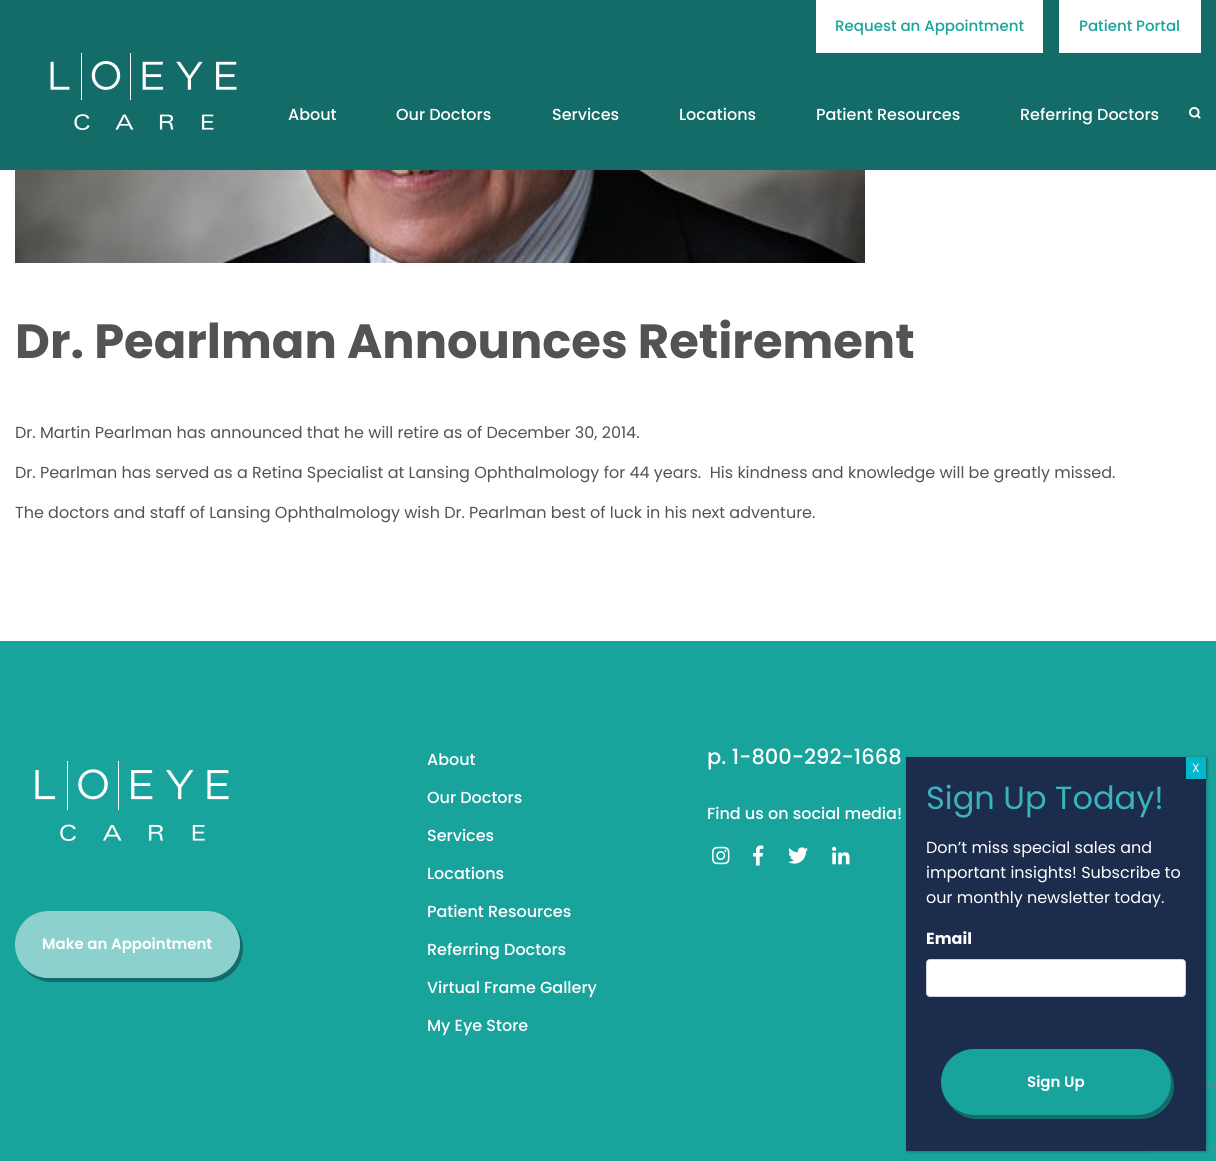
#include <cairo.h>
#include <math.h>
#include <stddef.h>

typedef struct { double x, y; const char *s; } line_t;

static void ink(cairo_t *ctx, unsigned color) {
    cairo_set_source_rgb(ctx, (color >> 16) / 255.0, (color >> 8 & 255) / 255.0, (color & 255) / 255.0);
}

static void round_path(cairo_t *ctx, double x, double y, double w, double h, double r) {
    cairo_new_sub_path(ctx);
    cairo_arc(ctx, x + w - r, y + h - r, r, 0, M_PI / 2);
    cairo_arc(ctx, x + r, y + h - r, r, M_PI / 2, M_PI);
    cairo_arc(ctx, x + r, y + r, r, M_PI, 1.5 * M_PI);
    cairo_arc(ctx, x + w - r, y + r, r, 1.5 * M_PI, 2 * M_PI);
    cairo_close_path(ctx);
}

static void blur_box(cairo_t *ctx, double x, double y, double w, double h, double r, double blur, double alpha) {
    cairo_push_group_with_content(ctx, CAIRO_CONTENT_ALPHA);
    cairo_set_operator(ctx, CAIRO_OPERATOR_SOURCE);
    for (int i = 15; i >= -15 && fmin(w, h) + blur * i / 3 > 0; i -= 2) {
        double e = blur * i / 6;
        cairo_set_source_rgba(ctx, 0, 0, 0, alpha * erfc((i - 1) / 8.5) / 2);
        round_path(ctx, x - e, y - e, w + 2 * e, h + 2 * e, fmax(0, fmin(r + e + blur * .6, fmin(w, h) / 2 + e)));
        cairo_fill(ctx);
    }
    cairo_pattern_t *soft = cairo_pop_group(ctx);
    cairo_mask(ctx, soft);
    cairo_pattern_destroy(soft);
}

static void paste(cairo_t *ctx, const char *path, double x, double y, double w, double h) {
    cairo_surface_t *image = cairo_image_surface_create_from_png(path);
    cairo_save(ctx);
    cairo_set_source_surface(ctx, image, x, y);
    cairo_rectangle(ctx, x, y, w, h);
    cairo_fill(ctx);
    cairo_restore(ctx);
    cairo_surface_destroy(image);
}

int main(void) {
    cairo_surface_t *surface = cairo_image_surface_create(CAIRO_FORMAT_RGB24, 1216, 1161);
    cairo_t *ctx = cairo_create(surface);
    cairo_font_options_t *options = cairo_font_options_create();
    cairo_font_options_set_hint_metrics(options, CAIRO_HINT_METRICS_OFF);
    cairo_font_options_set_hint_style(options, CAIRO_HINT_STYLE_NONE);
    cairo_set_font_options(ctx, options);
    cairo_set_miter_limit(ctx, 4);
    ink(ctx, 0xFFFFFF);
    cairo_paint(ctx);
    ink(ctx, 0x146C68);
    cairo_rectangle(ctx, 0, 0, 1216, 170);
    cairo_fill(ctx);
    ink(ctx, 0xFFFFFF);
    cairo_rectangle(ctx, 816, 0, 227, 53);
    cairo_fill(ctx);
    cairo_select_font_face(ctx, "Poppins Medium", CAIRO_FONT_SLANT_NORMAL, CAIRO_FONT_WEIGHT_NORMAL);
    cairo_set_font_size(ctx, 15);
    ink(ctx, 0x18A39D);
    cairo_move_to(ctx, 835, 31);
    cairo_show_text(ctx, "Request an Appointment");
    ink(ctx, 0xFFFFFF);
    cairo_rectangle(ctx, 1059, 0, 142, 53);
    cairo_fill(ctx);
    ink(ctx, 0x18A39D);
    cairo_move_to(ctx, 1079, 31);
    cairo_show_text(ctx, "Patient Portal");
    paste(ctx, "media/1.png", 50, 53, 187, 77);
    cairo_set_font_size(ctx, 16);
    ink(ctx, 0xFFFFFF);
    {
        static const line_t items[] = {
            {288, 120, "About"},
            {396, 120, "Our Doctors"},
            {552, 120, "Services"},
            {679, 120, "Locations"},
            {816, 120, "Patient Resources"},
            {1020, 120, "Referring Doctors"},
        };
        for (size_t i = 0; i < sizeof items / sizeof *items; i++) {
            cairo_move_to(ctx, items[i].x, items[i].y);
            cairo_show_text(ctx, items[i].s);
        }
    }
    paste(ctx, "media/2.png", 1189, 107, 12, 12);
    paste(ctx, "media/3.png", 15, 170, 850, 93);
    cairo_select_font_face(ctx, "Poppins", CAIRO_FONT_SLANT_NORMAL, CAIRO_FONT_WEIGHT_BOLD);
    cairo_set_font_size(ctx, 48);
    ink(ctx, 0x535353);
    cairo_move_to(ctx, 15, 358);
    cairo_show_text(ctx, "Dr. Pearlman Announces Retirement");
    cairo_select_font_face(ctx, "Poppins", CAIRO_FONT_SLANT_NORMAL, CAIRO_FONT_WEIGHT_NORMAL);
    cairo_set_font_size(ctx, 16);
    {
        static const line_t items[] = {
            {15, 438, "Dr. Martin Pearlman has announced that he will retire as of December 30, 2014."},
            {15, 478, "Dr. Pearlman has served as a Retina Specialist at Lansing Ophthalmology for 44 years.  His kindness and knowledge will be greatly missed."},
            {15, 518, "The doctors and staff of Lansing Ophthalmology wish Dr. Pearlman best of luck in his next adventure."},
        };
        for (size_t i = 0; i < sizeof items / sizeof *items; i++) {
            cairo_move_to(ctx, items[i].x, items[i].y);
            cairo_show_text(ctx, items[i].s);
        }
    }
    ink(ctx, 0x18A39D);
    cairo_rectangle(ctx, 0, 641, 1216, 520);
    cairo_fill(ctx);
    paste(ctx, "media/4.png", 35, 761, 194, 80);
    ink(ctx, 0x146C68);
    cairo_new_path(ctx);
    cairo_move_to(ctx, 23, 967);
    cairo_curve_to(ctx, 29, 976, 40, 982, 52, 982);
    cairo_line_to(ctx, 210, 982);
    cairo_curve_to(ctx, 228, 982, 243, 967, 243, 948);
    cairo_curve_to(ctx, 243, 940, 240, 932, 235, 926);
    cairo_curve_to(ctx, 238, 932, 240, 938, 240, 944);
    cairo_curve_to(ctx, 240, 963, 225, 978, 206, 978);
    cairo_line_to(ctx, 48, 978);
    cairo_curve_to(ctx, 38, 978, 29, 974, 23, 967);
    cairo_close_path(ctx);
    cairo_fill(ctx);
    ink(ctx, 0x8DD1CE);
    round_path(ctx, 15, 911, 225, 67, 33.5);
    cairo_fill(ctx);
    cairo_select_font_face(ctx, "Poppins SemiBold", CAIRO_FONT_SLANT_NORMAL, CAIRO_FONT_WEIGHT_NORMAL);
    cairo_set_font_size(ctx, 15);
    ink(ctx, 0xFFFFFF);
    cairo_move_to(ctx, 42, 949);
    cairo_show_text(ctx, "Make an Appointment");
    cairo_select_font_face(ctx, "Poppins Medium", CAIRO_FONT_SLANT_NORMAL, CAIRO_FONT_WEIGHT_NORMAL);
    cairo_set_font_size(ctx, 16);
    {
        static const line_t items[] = {
            {427, 765, "About"},
            {427, 803, "Our Doctors"},
            {427, 841, "Services"},
            {427, 879, "Locations"},
            {427, 917, "Patient Resources"},
            {427, 955, "Referring Doctors"},
            {427, 993, "Virtual Frame Gallery"},
            {427, 1031, "My Eye Store"},
        };
        for (size_t i = 0; i < sizeof items / sizeof *items; i++) {
            cairo_move_to(ctx, items[i].x, items[i].y);
            cairo_show_text(ctx, items[i].s);
        }
    }
    cairo_set_font_size(ctx, 21);
    cairo_move_to(ctx, 707, 764);
    cairo_show_text(ctx, "p. 1-800-292-1668");
    cairo_set_font_size(ctx, 16);
    cairo_move_to(ctx, 707, 819);
    cairo_show_text(ctx, "Find us on social media!");
    paste(ctx, "media/5.png", 712, 846, 18, 19);
    paste(ctx, "media/6.png", 753, 845, 11, 21);
    paste(ctx, "media/7.png", 788, 847, 20, 17);
    paste(ctx, "media/8.png", 832, 846, 18, 19);
    ink(ctx, 0x020202);
    blur_box(ctx, 907, 758, 300, 394, 0, 1.5, 0.23);
    cairo_save(ctx);
    cairo_set_fill_rule(ctx, CAIRO_FILL_RULE_EVEN_ODD);
    cairo_new_path(ctx);
    cairo_move_to(ctx, 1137, 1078);
    cairo_line_to(ctx, 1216, 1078);
    cairo_line_to(ctx, 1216, 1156);
    cairo_line_to(ctx, 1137, 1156);
    cairo_close_path(ctx);
    cairo_move_to(ctx, 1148, 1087);
    cairo_line_to(ctx, 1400, 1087);
    cairo_curve_to(ctx, 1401, 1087, 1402, 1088, 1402, 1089);
    cairo_line_to(ctx, 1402, 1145);
    cairo_curve_to(ctx, 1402, 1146, 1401, 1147, 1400, 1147);
    cairo_line_to(ctx, 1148, 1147);
    cairo_curve_to(ctx, 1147, 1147, 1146, 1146, 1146, 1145);
    cairo_line_to(ctx, 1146, 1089);
    cairo_curve_to(ctx, 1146, 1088, 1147, 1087, 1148, 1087);
    cairo_close_path(ctx);
    cairo_clip(ctx);
    ink(ctx, 0x808080);
    blur_box(ctx, 1146, 1087, 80, 60, 2, 2.5, 1);
    cairo_restore(ctx);
    ink(ctx, 0x1B2C4C);
    cairo_rectangle(ctx, 906, 757, 300, 394);
    cairo_fill(ctx);
    ink(ctx, 0x020202);
    blur_box(ctx, 1187, 758, 20, 22, 0, 1.5, 0.23);
    ink(ctx, 0x00B7CD);
    cairo_rectangle(ctx, 1186, 757, 20, 22);
    cairo_fill(ctx);
    cairo_select_font_face(ctx, "Poppins", CAIRO_FONT_SLANT_NORMAL, CAIRO_FONT_WEIGHT_NORMAL);
    cairo_set_font_size(ctx, 12);
    ink(ctx, 0xFFFFFF);
    cairo_move_to(ctx, 1192, 772);
    cairo_show_text(ctx, "X");
    cairo_set_font_size(ctx, 32);
    ink(ctx, 0x3BB3BF);
    cairo_move_to(ctx, 926, 809);
    cairo_show_text(ctx, "Sign Up Today!");
    cairo_set_font_size(ctx, 16);
    ink(ctx, 0xFFFFFF);
    {
        static const line_t items[] = {
            {926, 853, "Don’t miss special sales and"},
            {926, 878, "important insights! Subscribe to"},
            {926, 903, "our monthly newsletter today."},
        };
        for (size_t i = 0; i < sizeof items / sizeof *items; i++) {
            cairo_move_to(ctx, items[i].x, items[i].y);
            cairo_show_text(ctx, items[i].s);
        }
    }
    cairo_select_font_face(ctx, "Poppins", CAIRO_FONT_SLANT_NORMAL, CAIRO_FONT_WEIGHT_BOLD);
    cairo_move_to(ctx, 926, 944);
    cairo_show_text(ctx, "Email");
    round_path(ctx, 926.5, 959.5, 259, 37, 3.5);
    cairo_fill_preserve(ctx);
    ink(ctx, 0xCED4DA);
    cairo_set_line_width(ctx, 1);
    cairo_stroke(ctx);
    ink(ctx, 0x146C68);
    cairo_new_path(ctx);
    cairo_move_to(ctx, 949, 1104);
    cairo_curve_to(ctx, 955, 1113, 965, 1119, 977, 1119);
    cairo_line_to(ctx, 1141, 1119);
    cairo_curve_to(ctx, 1159, 1119, 1174, 1104, 1174, 1086);
    cairo_curve_to(ctx, 1174, 1078, 1171, 1070, 1166, 1064);
    cairo_curve_to(ctx, 1169, 1069, 1171, 1075, 1171, 1082);
    cairo_curve_to(ctx, 1171, 1100, 1156, 1115, 1138, 1115);
    cairo_line_to(ctx, 974, 1115);
    cairo_curve_to(ctx, 964, 1115, 955, 1111, 949, 1104);
    cairo_close_path(ctx);
    cairo_fill(ctx);
    ink(ctx, 0x18A39D);
    round_path(ctx, 941, 1049, 230, 66, 33);
    cairo_fill(ctx);
    cairo_select_font_face(ctx, "Poppins SemiBold", CAIRO_FONT_SLANT_NORMAL, CAIRO_FONT_WEIGHT_NORMAL);
    cairo_set_font_size(ctx, 15);
    ink(ctx, 0xFFFFFF);
    cairo_move_to(ctx, 1027, 1087);
    cairo_show_text(ctx, "Sign Up");
    cairo_surface_write_to_png(surface, "image.png");
    cairo_font_options_destroy(options);
    cairo_destroy(ctx);
    cairo_surface_destroy(surface);
    return 0;
}
